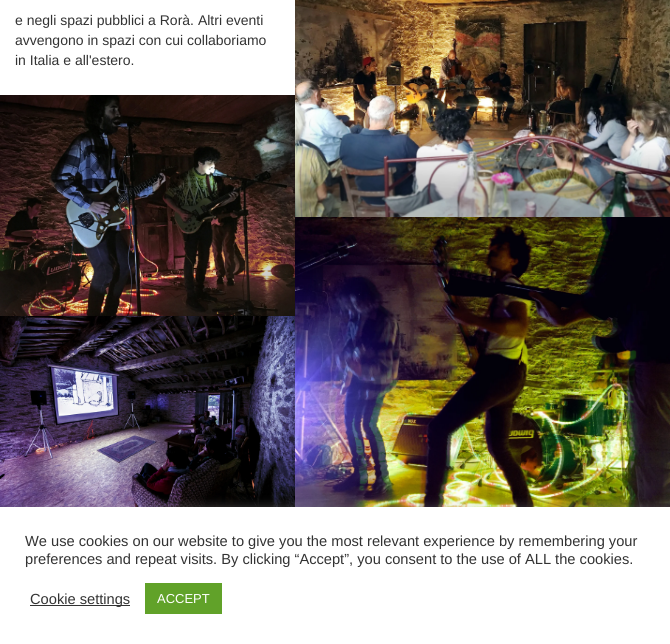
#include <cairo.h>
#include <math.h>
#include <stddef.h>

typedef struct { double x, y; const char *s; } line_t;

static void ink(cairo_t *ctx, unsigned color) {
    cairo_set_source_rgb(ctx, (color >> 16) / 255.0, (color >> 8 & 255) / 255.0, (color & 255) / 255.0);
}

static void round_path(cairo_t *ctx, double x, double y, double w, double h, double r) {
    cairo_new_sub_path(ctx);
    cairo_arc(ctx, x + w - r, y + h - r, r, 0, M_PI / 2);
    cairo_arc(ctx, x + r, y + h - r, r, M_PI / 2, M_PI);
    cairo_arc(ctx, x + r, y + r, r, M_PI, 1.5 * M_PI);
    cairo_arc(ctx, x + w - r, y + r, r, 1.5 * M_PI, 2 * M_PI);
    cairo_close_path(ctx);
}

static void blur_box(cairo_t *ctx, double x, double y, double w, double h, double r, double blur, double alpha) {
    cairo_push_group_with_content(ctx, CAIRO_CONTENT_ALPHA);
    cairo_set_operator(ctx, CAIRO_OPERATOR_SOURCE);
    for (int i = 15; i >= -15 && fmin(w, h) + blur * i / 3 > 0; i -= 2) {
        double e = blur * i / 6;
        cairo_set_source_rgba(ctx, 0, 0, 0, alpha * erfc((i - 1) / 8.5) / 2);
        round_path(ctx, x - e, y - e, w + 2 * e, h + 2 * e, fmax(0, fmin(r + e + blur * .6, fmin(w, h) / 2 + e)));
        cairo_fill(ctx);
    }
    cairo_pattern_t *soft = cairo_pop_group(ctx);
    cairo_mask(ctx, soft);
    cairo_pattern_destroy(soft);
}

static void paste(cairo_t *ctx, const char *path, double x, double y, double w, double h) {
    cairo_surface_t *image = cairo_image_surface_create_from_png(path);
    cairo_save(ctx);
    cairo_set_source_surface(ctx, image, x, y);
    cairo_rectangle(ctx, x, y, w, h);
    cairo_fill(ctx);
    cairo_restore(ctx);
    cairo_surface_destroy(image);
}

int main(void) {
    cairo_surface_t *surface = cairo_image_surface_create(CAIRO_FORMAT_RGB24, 670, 644);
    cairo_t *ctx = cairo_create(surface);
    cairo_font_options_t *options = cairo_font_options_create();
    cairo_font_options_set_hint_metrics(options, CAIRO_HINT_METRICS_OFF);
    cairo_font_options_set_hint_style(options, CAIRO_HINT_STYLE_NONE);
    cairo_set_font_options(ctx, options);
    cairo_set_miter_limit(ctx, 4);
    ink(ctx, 0xFFFFFF);
    cairo_paint(ctx);
    cairo_select_font_face(ctx, "Liberation Sans", CAIRO_FONT_SLANT_NORMAL, CAIRO_FONT_WEIGHT_NORMAL);
    cairo_set_font_size(ctx, 14);
    ink(ctx, 0x333333);
    {
        static const line_t items[] = {
            {15, 25, "e negli spazi pubblici a Rorà. Altri eventi"},
            {15, 45, "avvengono in spazi con cui collaboriamo"},
            {15, 65, "in Italia e all'estero."},
        };
        for (size_t i = 0; i < sizeof items / sizeof *items; i++) {
            cairo_move_to(ctx, items[i].x, items[i].y);
            cairo_show_text(ctx, items[i].s);
        }
    }
    paste(ctx, "media/1.png", 0, 95, 295, 221);
    paste(ctx, "media/2.png", 0, 316, 295, 191);
    paste(ctx, "media/3.png", 295, 0, 375, 217);
    paste(ctx, "media/4.png", 295, 217, 375, 290);
    ink(ctx, 0xACABAB);
    blur_box(ctx, 0, 506, 670, 137, 0, 5, 0.3);
    ink(ctx, 0xFFFFFF);
    cairo_rectangle(ctx, 0, 507, 670, 137);
    cairo_fill(ctx);
    cairo_set_font_size(ctx, 14.65);
    ink(ctx, 0x333333);
    cairo_move_to(ctx, 25, 546);
    cairo_show_text(ctx, "We use cookies on our website to give you the most relevant experience by remembering your");
    cairo_move_to(ctx, 25, 564);
    cairo_show_text(ctx, "preferences and repeat visits. By clicking “Accept”, you consent to the use of ALL the cookies.");
    cairo_rectangle(ctx, 30, 605, 100, 1);
    cairo_fill(ctx);
    cairo_move_to(ctx, 30, 604);
    cairo_show_text(ctx, "Cookie settings");
    ink(ctx, 0x61A229);
    cairo_rectangle(ctx, 145, 583, 77, 31);
    cairo_fill(ctx);
    cairo_set_font_size(ctx, 13);
    ink(ctx, 0xFFFFFF);
    cairo_move_to(ctx, 157, 603);
    cairo_show_text(ctx, "ACCEPT");
    cairo_surface_write_to_png(surface, "image.png");
    cairo_font_options_destroy(options);
    cairo_destroy(ctx);
    cairo_surface_destroy(surface);
    return 0;
}
